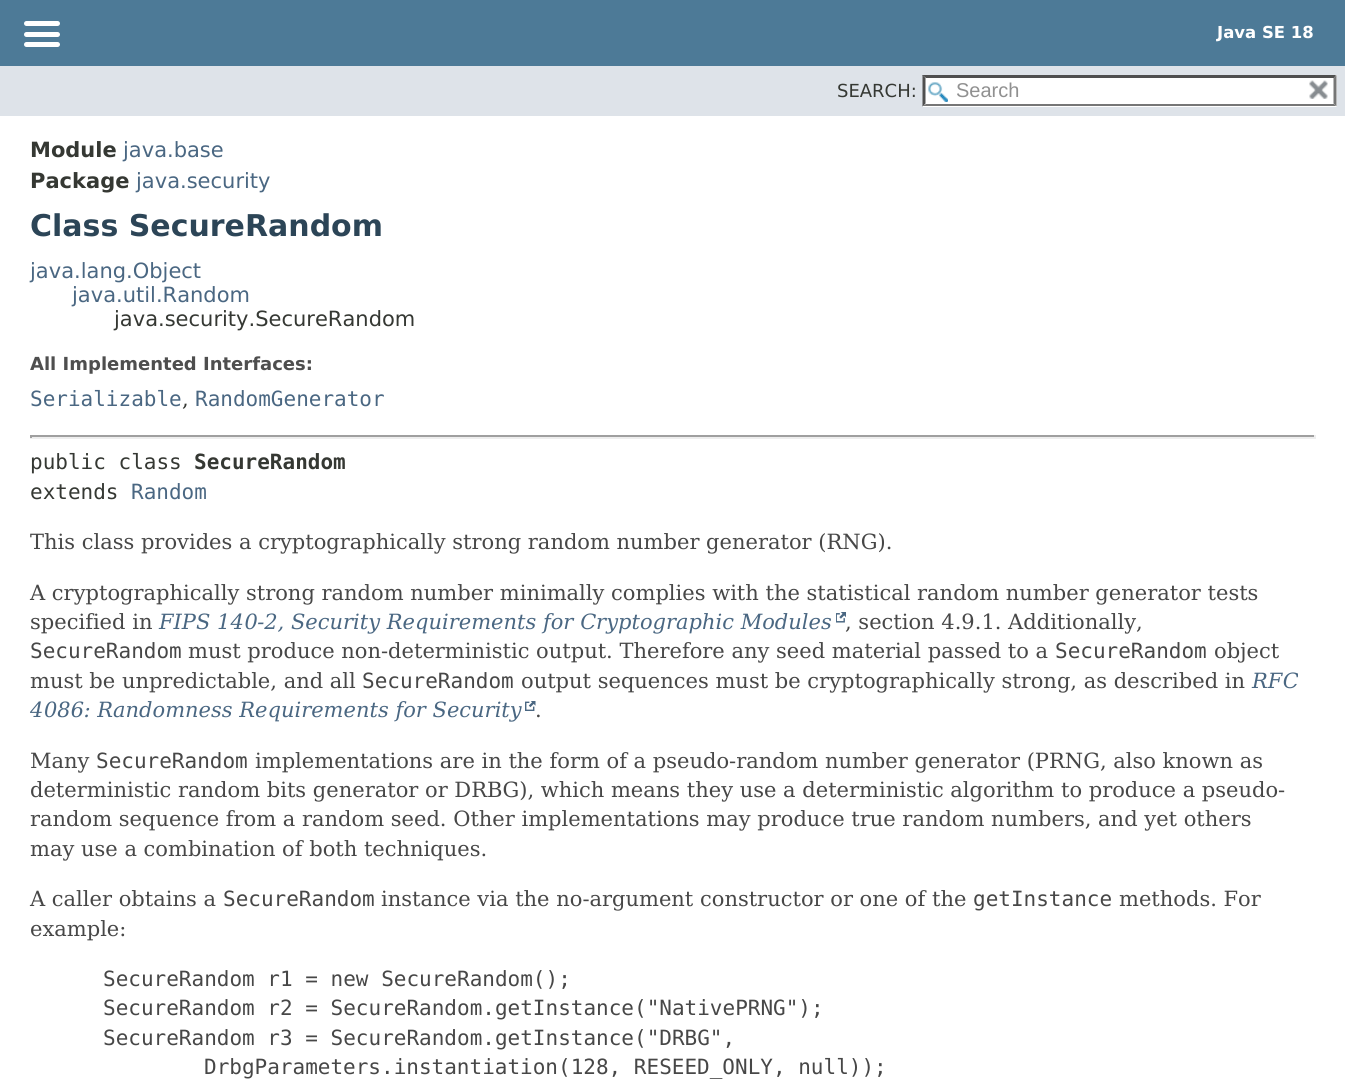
#include <cairo.h>
#include <math.h>
#include <stddef.h>

typedef struct { double x, y; const char *s; } line_t;
typedef struct { double x, y, w, h; unsigned color; } box_t;

static void ink(cairo_t *ctx, unsigned color) {
    cairo_set_source_rgb(ctx, (color >> 16) / 255.0, (color >> 8 & 255) / 255.0, (color & 255) / 255.0);
}

static void round_path(cairo_t *ctx, double x, double y, double w, double h, double r) {
    cairo_new_sub_path(ctx);
    cairo_arc(ctx, x + w - r, y + h - r, r, 0, M_PI / 2);
    cairo_arc(ctx, x + r, y + h - r, r, M_PI / 2, M_PI);
    cairo_arc(ctx, x + r, y + r, r, M_PI, 1.5 * M_PI);
    cairo_arc(ctx, x + w - r, y + r, r, 1.5 * M_PI, 2 * M_PI);
    cairo_close_path(ctx);
}

static void paste(cairo_t *ctx, const char *path, double x, double y, double w, double h) {
    cairo_surface_t *image = cairo_image_surface_create_from_png(path);
    cairo_save(ctx);
    cairo_set_source_surface(ctx, image, x, y);
    cairo_rectangle(ctx, x, y, w, h);
    cairo_fill(ctx);
    cairo_restore(ctx);
    cairo_surface_destroy(image);
}

int main(void) {
    cairo_surface_t *surface = cairo_image_surface_create(CAIRO_FORMAT_RGB24, 1345, 1086);
    cairo_t *ctx = cairo_create(surface);
    cairo_font_options_t *options = cairo_font_options_create();
    cairo_font_options_set_hint_metrics(options, CAIRO_HINT_METRICS_OFF);
    cairo_font_options_set_hint_style(options, CAIRO_HINT_STYLE_NONE);
    cairo_set_font_options(ctx, options);
    cairo_set_miter_limit(ctx, 4);
    ink(ctx, 0xFFFFFF);
    cairo_paint(ctx);
    ink(ctx, 0x4D7A97);
    cairo_rectangle(ctx, 0, 0, 1345, 66);
    cairo_fill(ctx);
    ink(ctx, 0xFFFFFF);
    round_path(ctx, 24, 21, 36, 5, 2.5);
    cairo_fill(ctx);
    round_path(ctx, 24, 32, 36, 5, 2.5);
    cairo_fill(ctx);
    round_path(ctx, 24, 42, 36, 5, 2.5);
    cairo_fill(ctx);
    cairo_select_font_face(ctx, "DejaVu Sans", CAIRO_FONT_SLANT_NORMAL, CAIRO_FONT_WEIGHT_BOLD);
    cairo_set_font_size(ctx, 16.5);
    cairo_move_to(ctx, 1217, 38);
    cairo_show_text(ctx, "Java SE 18");
    ink(ctx, 0xDEE3E9);
    cairo_rectangle(ctx, 0, 66, 1345, 50);
    cairo_fill(ctx);
    cairo_select_font_face(ctx, "DejaVu Sans", CAIRO_FONT_SLANT_NORMAL, CAIRO_FONT_WEIGHT_NORMAL);
    cairo_set_font_size(ctx, 18);
    ink(ctx, 0x353833);
    cairo_move_to(ctx, 837, 97);
    cairo_show_text(ctx, "SEARCH:");
    ink(ctx, 0xFFFFFF);
    cairo_rectangle(ctx, 923, 75, 414, 32);
    cairo_fill(ctx);
    paste(ctx, "media/1.png", 928, 82, 20, 20);
    ink(ctx, 0x4F4F4F);
    cairo_new_path(ctx);
    cairo_move_to(ctx, 922, 75);
    cairo_line_to(ctx, 1336, 75);
    cairo_line_to(ctx, 1334, 78);
    cairo_line_to(ctx, 926, 78);
    cairo_close_path(ctx);
    cairo_fill(ctx);
    ink(ctx, 0x767676);
    cairo_new_path(ctx);
    cairo_move_to(ctx, 1336.5, 75);
    cairo_line_to(ctx, 1336.5, 106.5);
    cairo_line_to(ctx, 1333.5, 103.5);
    cairo_line_to(ctx, 1333.5, 78);
    cairo_close_path(ctx);
    cairo_fill(ctx);
    cairo_new_path(ctx);
    cairo_move_to(ctx, 1336, 106);
    cairo_line_to(ctx, 922, 106);
    cairo_line_to(ctx, 926, 104);
    cairo_line_to(ctx, 1334, 104);
    cairo_close_path(ctx);
    cairo_fill(ctx);
    ink(ctx, 0x4F4F4F);
    cairo_new_path(ctx);
    cairo_move_to(ctx, 922.5, 106.5);
    cairo_line_to(ctx, 922.5, 75);
    cairo_line_to(ctx, 925.5, 78);
    cairo_line_to(ctx, 925.5, 103.5);
    cairo_close_path(ctx);
    cairo_fill(ctx);
    cairo_select_font_face(ctx, "Liberation Sans", CAIRO_FONT_SLANT_NORMAL, CAIRO_FONT_WEIGHT_NORMAL);
    cairo_set_font_size(ctx, 20);
    ink(ctx, 0x909090);
    cairo_move_to(ctx, 956, 97);
    cairo_show_text(ctx, "Search");
    paste(ctx, "media/2.png", 1309, 80, 19, 19);
    cairo_select_font_face(ctx, "DejaVu Sans", CAIRO_FONT_SLANT_NORMAL, CAIRO_FONT_WEIGHT_BOLD);
    cairo_set_font_size(ctx, 21);
    ink(ctx, 0x353833);
    cairo_move_to(ctx, 30, 157);
    cairo_show_text(ctx, "Module");
    cairo_select_font_face(ctx, "DejaVu Sans", CAIRO_FONT_SLANT_NORMAL, CAIRO_FONT_WEIGHT_NORMAL);
    ink(ctx, 0x4A6782);
    cairo_move_to(ctx, 123, 157);
    cairo_show_text(ctx, "java.base");
    cairo_select_font_face(ctx, "DejaVu Sans", CAIRO_FONT_SLANT_NORMAL, CAIRO_FONT_WEIGHT_BOLD);
    ink(ctx, 0x353833);
    cairo_move_to(ctx, 30, 188);
    cairo_show_text(ctx, "Package");
    cairo_select_font_face(ctx, "DejaVu Sans", CAIRO_FONT_SLANT_NORMAL, CAIRO_FONT_WEIGHT_NORMAL);
    ink(ctx, 0x4A6782);
    cairo_move_to(ctx, 136, 188);
    cairo_show_text(ctx, "java.security");
    cairo_select_font_face(ctx, "DejaVu Sans", CAIRO_FONT_SLANT_NORMAL, CAIRO_FONT_WEIGHT_BOLD);
    cairo_set_font_size(ctx, 30);
    ink(ctx, 0x2C4557);
    cairo_move_to(ctx, 30, 236);
    cairo_show_text(ctx, "Class SecureRandom");
    cairo_select_font_face(ctx, "DejaVu Sans", CAIRO_FONT_SLANT_NORMAL, CAIRO_FONT_WEIGHT_NORMAL);
    cairo_set_font_size(ctx, 21);
    ink(ctx, 0x4A6782);
    cairo_move_to(ctx, 30, 278);
    cairo_show_text(ctx, "java.lang.Object");
    cairo_move_to(ctx, 72, 302);
    cairo_show_text(ctx, "java.util.Random");
    ink(ctx, 0x353833);
    cairo_move_to(ctx, 114, 326);
    cairo_show_text(ctx, "java.security.SecureRandom");
    cairo_select_font_face(ctx, "DejaVu Sans", CAIRO_FONT_SLANT_NORMAL, CAIRO_FONT_WEIGHT_BOLD);
    cairo_set_font_size(ctx, 18);
    ink(ctx, 0x4E4E4E);
    cairo_move_to(ctx, 30, 370);
    cairo_show_text(ctx, "All Implemented Interfaces:");
    cairo_select_font_face(ctx, "DejaVu Sans Mono", CAIRO_FONT_SLANT_NORMAL, CAIRO_FONT_WEIGHT_NORMAL);
    cairo_set_font_size(ctx, 21);
    ink(ctx, 0x4A6782);
    cairo_move_to(ctx, 30, 406);
    cairo_show_text(ctx, "Serializable");
    cairo_select_font_face(ctx, "DejaVu Serif", CAIRO_FONT_SLANT_NORMAL, CAIRO_FONT_WEIGHT_NORMAL);
    ink(ctx, 0x353833);
    cairo_move_to(ctx, 182, 406);
    cairo_show_text(ctx, ",");
    cairo_select_font_face(ctx, "DejaVu Sans Mono", CAIRO_FONT_SLANT_NORMAL, CAIRO_FONT_WEIGHT_NORMAL);
    ink(ctx, 0x4A6782);
    cairo_move_to(ctx, 195, 406);
    cairo_show_text(ctx, "RandomGenerator");
    {
        static const box_t items[] = {
            {30, 435, 1286, 2, 0x9F9F9F},
            {1314, 435, 2, 3, 0xEEEEEE},
            {30, 437, 1286, 2, 0xEEEEEE},
            {30, 435, 2, 3, 0x9F9F9F},
        };
        for (size_t i = 0; i < sizeof items / sizeof *items; i++) {
            ink(ctx, items[i].color);
            cairo_rectangle(ctx, items[i].x, items[i].y, items[i].w, items[i].h);
            cairo_fill(ctx);
        }
    }
    ink(ctx, 0x353833);
    cairo_move_to(ctx, 30, 469);
    cairo_show_text(ctx, "public class");
    cairo_select_font_face(ctx, "DejaVu Sans Mono", CAIRO_FONT_SLANT_NORMAL, CAIRO_FONT_WEIGHT_BOLD);
    cairo_move_to(ctx, 194, 469);
    cairo_show_text(ctx, "SecureRandom");
    cairo_select_font_face(ctx, "DejaVu Sans Mono", CAIRO_FONT_SLANT_NORMAL, CAIRO_FONT_WEIGHT_NORMAL);
    cairo_move_to(ctx, 30, 499);
    cairo_show_text(ctx, "extends");
    ink(ctx, 0x4A6782);
    cairo_move_to(ctx, 131, 499);
    cairo_show_text(ctx, "Random");
    cairo_select_font_face(ctx, "DejaVu Serif", CAIRO_FONT_SLANT_NORMAL, CAIRO_FONT_WEIGHT_NORMAL);
    ink(ctx, 0x474747);
    {
        static const line_t items[] = {
            {30, 549, "This class provides a cryptographically strong random number generator (RNG)."},
            {30, 600, "A cryptographically strong random number minimally complies with the statistical random number generator tests"},
            {30, 629, "specified in"},
        };
        for (size_t i = 0; i < sizeof items / sizeof *items; i++) {
            cairo_move_to(ctx, items[i].x, items[i].y);
            cairo_show_text(ctx, items[i].s);
        }
    }
    cairo_select_font_face(ctx, "DejaVu Serif", CAIRO_FONT_SLANT_ITALIC, CAIRO_FONT_WEIGHT_NORMAL);
    ink(ctx, 0x4A6782);
    cairo_move_to(ctx, 159, 629);
    cairo_show_text(ctx, "FIPS 140-2, Security Requirements for Cryptographic Modules");
    paste(ctx, "media/3.png", 836, 612, 10, 11);
    cairo_select_font_face(ctx, "DejaVu Serif", CAIRO_FONT_SLANT_NORMAL, CAIRO_FONT_WEIGHT_NORMAL);
    ink(ctx, 0x474747);
    cairo_move_to(ctx, 845, 629);
    cairo_show_text(ctx, ", section 4.9.1. Additionally,");
    cairo_select_font_face(ctx, "DejaVu Sans Mono", CAIRO_FONT_SLANT_NORMAL, CAIRO_FONT_WEIGHT_NORMAL);
    cairo_move_to(ctx, 30, 658);
    cairo_show_text(ctx, "SecureRandom");
    cairo_select_font_face(ctx, "DejaVu Serif", CAIRO_FONT_SLANT_NORMAL, CAIRO_FONT_WEIGHT_NORMAL);
    cairo_move_to(ctx, 188, 658);
    cairo_show_text(ctx, "must produce non-deterministic output. Therefore any seed material passed to a");
    cairo_select_font_face(ctx, "DejaVu Sans Mono", CAIRO_FONT_SLANT_NORMAL, CAIRO_FONT_WEIGHT_NORMAL);
    cairo_move_to(ctx, 1055, 658);
    cairo_show_text(ctx, "SecureRandom");
    cairo_select_font_face(ctx, "DejaVu Serif", CAIRO_FONT_SLANT_NORMAL, CAIRO_FONT_WEIGHT_NORMAL);
    cairo_move_to(ctx, 1214, 658);
    cairo_show_text(ctx, "object");
    cairo_select_font_face(ctx, "DejaVu Serif", CAIRO_FONT_SLANT_ITALIC, CAIRO_FONT_WEIGHT_NORMAL);
    ink(ctx, 0x4A6782);
    cairo_move_to(ctx, 1252, 688);
    cairo_show_text(ctx, "RFC");
    cairo_move_to(ctx, 30, 717);
    cairo_show_text(ctx, "4086: Randomness Requirements for Security");
    paste(ctx, "media/4.png", 525, 701, 11, 10);
    cairo_select_font_face(ctx, "DejaVu Serif", CAIRO_FONT_SLANT_NORMAL, CAIRO_FONT_WEIGHT_NORMAL);
    ink(ctx, 0x474747);
    cairo_move_to(ctx, 30, 688);
    cairo_show_text(ctx, "must be unpredictable, and all");
    cairo_select_font_face(ctx, "DejaVu Sans Mono", CAIRO_FONT_SLANT_NORMAL, CAIRO_FONT_WEIGHT_NORMAL);
    cairo_move_to(ctx, 362, 688);
    cairo_show_text(ctx, "SecureRandom");
    cairo_select_font_face(ctx, "DejaVu Serif", CAIRO_FONT_SLANT_NORMAL, CAIRO_FONT_WEIGHT_NORMAL);
    {
        static const line_t items[] = {
            {521, 688, "output sequences must be cryptographically strong, as described in"},
            {535, 717, "."},
            {30, 768, "Many"},
        };
        for (size_t i = 0; i < sizeof items / sizeof *items; i++) {
            cairo_move_to(ctx, items[i].x, items[i].y);
            cairo_show_text(ctx, items[i].s);
        }
    }
    cairo_select_font_face(ctx, "DejaVu Sans Mono", CAIRO_FONT_SLANT_NORMAL, CAIRO_FONT_WEIGHT_NORMAL);
    cairo_move_to(ctx, 96, 768);
    cairo_show_text(ctx, "SecureRandom");
    cairo_select_font_face(ctx, "DejaVu Serif", CAIRO_FONT_SLANT_NORMAL, CAIRO_FONT_WEIGHT_NORMAL);
    {
        static const line_t items[] = {
            {255, 768, "implementations are in the form of a pseudo-random number generator (PRNG, also known as"},
            {30, 797, "deterministic random bits generator or DRBG), which means they use a deterministic algorithm to produce a pseudo-"},
            {30, 826, "random sequence from a random seed. Other implementations may produce true random numbers, and yet others"},
            {30, 856, "may use a combination of both techniques."},
            {30, 906, "A caller obtains a"},
        };
        for (size_t i = 0; i < sizeof items / sizeof *items; i++) {
            cairo_move_to(ctx, items[i].x, items[i].y);
            cairo_show_text(ctx, items[i].s);
        }
    }
    cairo_select_font_face(ctx, "DejaVu Sans Mono", CAIRO_FONT_SLANT_NORMAL, CAIRO_FONT_WEIGHT_NORMAL);
    cairo_move_to(ctx, 223, 906);
    cairo_show_text(ctx, "SecureRandom");
    cairo_select_font_face(ctx, "DejaVu Serif", CAIRO_FONT_SLANT_NORMAL, CAIRO_FONT_WEIGHT_NORMAL);
    cairo_move_to(ctx, 381, 906);
    cairo_show_text(ctx, "instance via the no-argument constructor or one of the");
    cairo_select_font_face(ctx, "DejaVu Sans Mono", CAIRO_FONT_SLANT_NORMAL, CAIRO_FONT_WEIGHT_NORMAL);
    cairo_move_to(ctx, 973, 906);
    cairo_show_text(ctx, "getInstance");
    cairo_select_font_face(ctx, "DejaVu Serif", CAIRO_FONT_SLANT_NORMAL, CAIRO_FONT_WEIGHT_NORMAL);
    cairo_move_to(ctx, 1119, 906);
    cairo_show_text(ctx, "methods. For");
    cairo_move_to(ctx, 30, 936);
    cairo_show_text(ctx, "example:");
    cairo_select_font_face(ctx, "DejaVu Sans Mono", CAIRO_FONT_SLANT_NORMAL, CAIRO_FONT_WEIGHT_NORMAL);
    {
        static const line_t items[] = {
            {103, 986, "SecureRandom r1 = new SecureRandom();"},
            {103, 1015, "SecureRandom r2 = SecureRandom.getInstance(\"NativePRNG\");"},
            {103, 1045, "SecureRandom r3 = SecureRandom.getInstance(\"DRBG\","},
            {204, 1074, "DrbgParameters.instantiation(128, RESEED_ONLY, null));"},
        };
        for (size_t i = 0; i < sizeof items / sizeof *items; i++) {
            cairo_move_to(ctx, items[i].x, items[i].y);
            cairo_show_text(ctx, items[i].s);
        }
    }
    cairo_surface_write_to_png(surface, "image.png");
    cairo_font_options_destroy(options);
    cairo_destroy(ctx);
    cairo_surface_destroy(surface);
    return 0;
}
